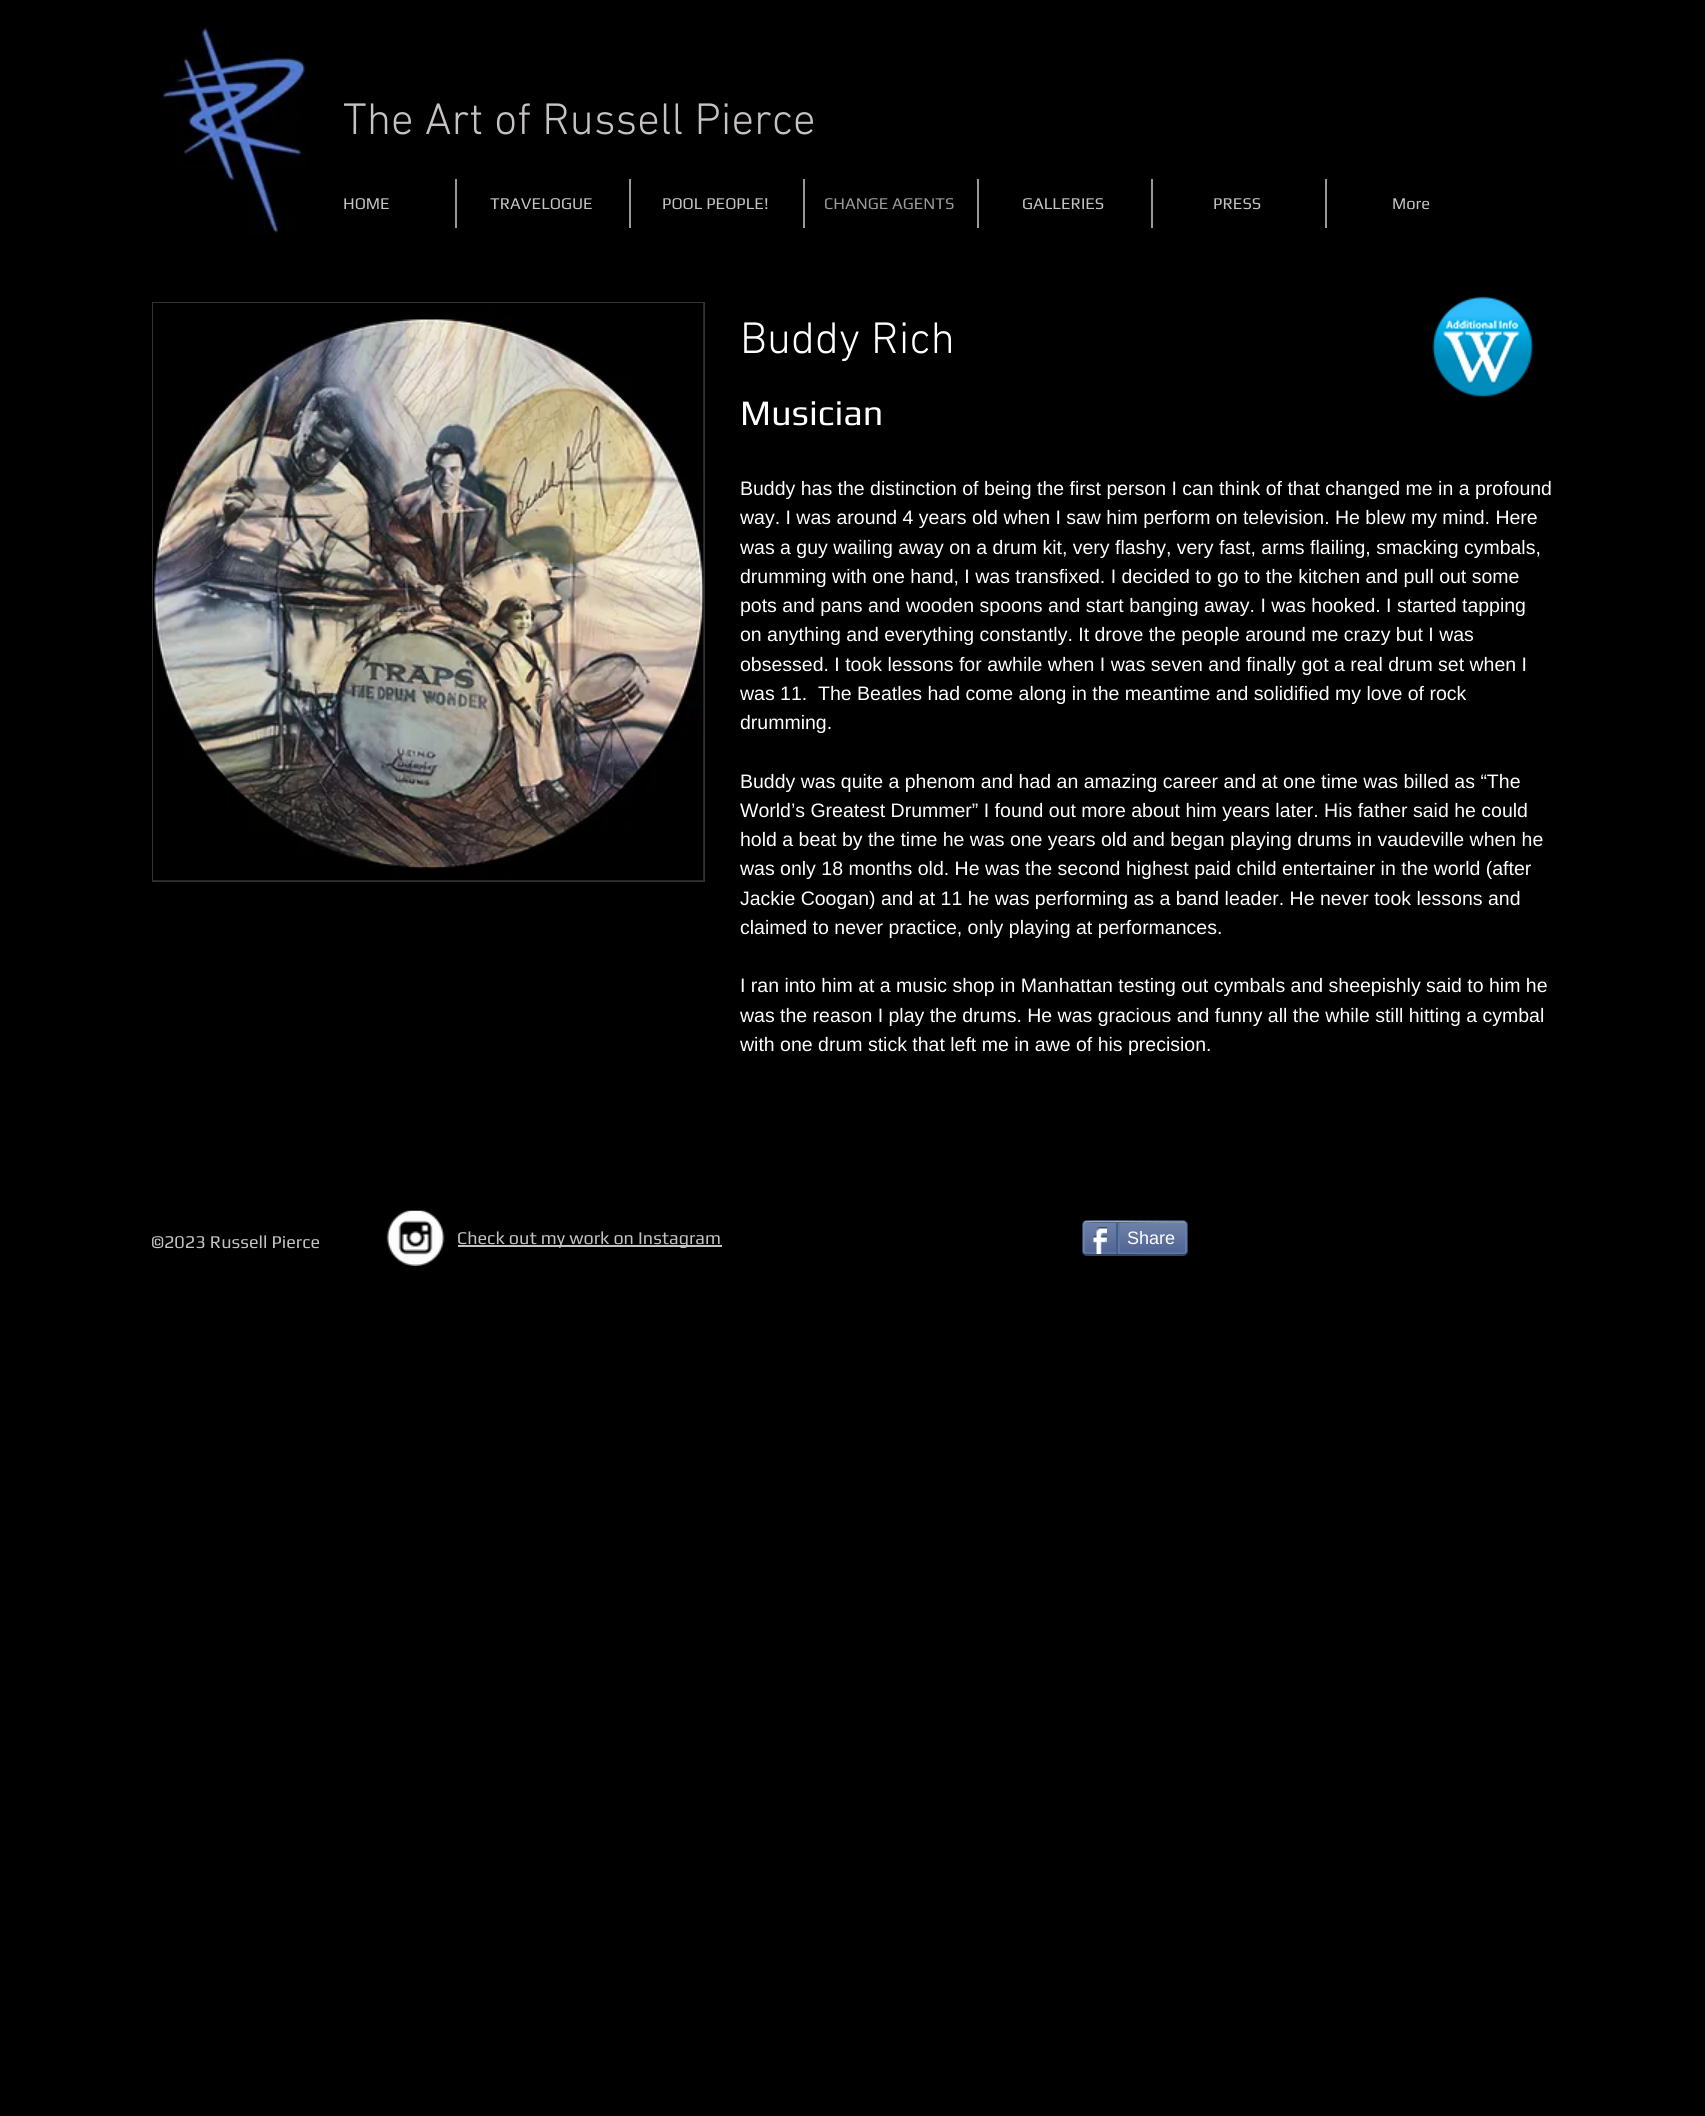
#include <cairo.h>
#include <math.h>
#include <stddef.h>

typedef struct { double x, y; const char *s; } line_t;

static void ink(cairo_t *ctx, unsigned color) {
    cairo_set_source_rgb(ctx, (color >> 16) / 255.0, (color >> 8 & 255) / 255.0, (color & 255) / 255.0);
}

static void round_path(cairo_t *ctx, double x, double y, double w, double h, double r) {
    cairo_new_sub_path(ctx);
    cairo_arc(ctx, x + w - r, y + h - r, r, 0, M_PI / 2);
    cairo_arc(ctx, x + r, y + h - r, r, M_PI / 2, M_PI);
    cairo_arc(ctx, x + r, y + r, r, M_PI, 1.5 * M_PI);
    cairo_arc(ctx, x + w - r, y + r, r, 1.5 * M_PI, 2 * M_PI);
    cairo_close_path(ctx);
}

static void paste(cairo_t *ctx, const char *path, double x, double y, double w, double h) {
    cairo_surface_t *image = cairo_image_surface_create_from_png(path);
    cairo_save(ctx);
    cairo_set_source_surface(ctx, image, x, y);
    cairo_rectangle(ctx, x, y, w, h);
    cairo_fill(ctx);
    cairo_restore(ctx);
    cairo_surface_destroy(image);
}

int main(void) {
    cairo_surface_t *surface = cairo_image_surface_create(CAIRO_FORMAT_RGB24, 1705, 2116);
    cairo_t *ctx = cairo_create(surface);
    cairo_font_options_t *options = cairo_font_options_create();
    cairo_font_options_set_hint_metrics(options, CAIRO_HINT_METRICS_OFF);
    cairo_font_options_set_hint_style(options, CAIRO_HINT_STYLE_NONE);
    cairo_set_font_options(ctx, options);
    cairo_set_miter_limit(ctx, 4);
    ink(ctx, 0x000000);
    cairo_paint(ctx);
    paste(ctx, "media/1.png", 162, 26, 146, 209);
    cairo_select_font_face(ctx, "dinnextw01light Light", CAIRO_FONT_SLANT_NORMAL, CAIRO_FONT_WEIGHT_NORMAL);
    cairo_set_font_size(ctx, 45);
    ink(ctx, 0xC6C2C2);
    cairo_move_to(ctx, 343, 134);
    cairo_show_text(ctx, "The Art of Russell Pierce");
    cairo_select_font_face(ctx, "Play", CAIRO_FONT_SLANT_NORMAL, CAIRO_FONT_WEIGHT_NORMAL);
    cairo_set_font_size(ctx, 16.5);
    cairo_move_to(ctx, 343, 209);
    cairo_show_text(ctx, "HOME");
    ink(ctx, 0x999999);
    cairo_rectangle(ctx, 455, 179, 2, 49);
    cairo_fill(ctx);
    ink(ctx, 0xC6C2C2);
    cairo_move_to(ctx, 490, 209);
    cairo_show_text(ctx, "TRAVELOGUE");
    ink(ctx, 0x999999);
    cairo_rectangle(ctx, 629, 179, 2, 49);
    cairo_fill(ctx);
    ink(ctx, 0xC6C2C2);
    cairo_move_to(ctx, 662, 209);
    cairo_show_text(ctx, "POOL PEOPLE!");
    ink(ctx, 0x999999);
    cairo_rectangle(ctx, 803, 179, 2, 49);
    cairo_fill(ctx);
    cairo_move_to(ctx, 824, 209);
    cairo_show_text(ctx, "CHANGE AGENTS");
    cairo_rectangle(ctx, 977, 179, 2, 49);
    cairo_fill(ctx);
    ink(ctx, 0xC6C2C2);
    cairo_move_to(ctx, 1022, 209);
    cairo_show_text(ctx, "GALLERIES");
    ink(ctx, 0x999999);
    cairo_rectangle(ctx, 1151, 179, 2, 49);
    cairo_fill(ctx);
    ink(ctx, 0xC6C2C2);
    cairo_move_to(ctx, 1213, 209);
    cairo_show_text(ctx, "PRESS");
    ink(ctx, 0x999999);
    cairo_rectangle(ctx, 1325, 179, 2, 49);
    cairo_fill(ctx);
    ink(ctx, 0xC6C2C2);
    cairo_move_to(ctx, 1392, 209);
    cairo_show_text(ctx, "More");
    ink(ctx, 0x333333);
    cairo_rectangle(ctx, 152, 302, 553, 580);
    cairo_fill(ctx);
    paste(ctx, "media/2.png", 153, 303, 551, 578);
    cairo_select_font_face(ctx, "dinnextw01light Light", CAIRO_FONT_SLANT_NORMAL, CAIRO_FONT_WEIGHT_NORMAL);
    cairo_set_font_size(ctx, 45);
    ink(ctx, 0xFFFFFF);
    cairo_move_to(ctx, 740, 353);
    cairo_show_text(ctx, "Buddy Rich");
    paste(ctx, "media/3.png", 1432, 296, 102, 102);
    cairo_select_font_face(ctx, "Play", CAIRO_FONT_SLANT_NORMAL, CAIRO_FONT_WEIGHT_NORMAL);
    cairo_set_font_size(ctx, 36);
    cairo_move_to(ctx, 740, 425);
    cairo_show_text(ctx, "Musician");
    cairo_select_font_face(ctx, "Liberation Sans", CAIRO_FONT_SLANT_NORMAL, CAIRO_FONT_WEIGHT_NORMAL);
    cairo_set_font_size(ctx, 19.5);
    {
        static const line_t items[] = {
            {740, 495, "Buddy has the distinction of being the first person I can think of that changed me in a profound"},
            {740, 524, "way. I was around 4 years old when I saw him perform on television. He blew my mind. Here"},
            {740, 554, "was a guy wailing away on a drum kit, very flashy, very fast, arms flailing, smacking cymbals,"},
            {740, 583, "drumming with one hand, I was transfixed. I decided to go to the kitchen and pull out some"},
            {740, 612, "pots and pans and wooden spoons and start banging away. I was hooked. I started tapping"},
            {740, 641, "on anything and everything constantly. It drove the people around me crazy but I was"},
            {740, 671, "obsessed. I took lessons for awhile when I was seven and finally got a real drum set when I"},
            {740, 700, "was 11.  The Beatles had come along in the meantime and solidified my love of rock"},
            {740, 729, "drumming."},
            {740, 788, "Buddy was quite a phenom and had an amazing career and at one time was billed as “The"},
            {740, 817, "World’s Greatest Drummer” I found out more about him years later. His father said he could"},
            {740, 846, "hold a beat by the time he was one years old and began playing drums in vaudeville when he"},
            {740, 875, "was only 18 months old. He was the second highest paid child entertainer in the world (after"},
            {740, 905, "Jackie Coogan) and at 11 he was performing as a band leader. He never took lessons and"},
            {740, 934, "claimed to never practice, only playing at performances."},
            {740, 992, "I ran into him at a music shop in Manhattan testing out cymbals and sheepishly said to him he"},
            {740, 1022, "was the reason I play the drums. He was gracious and funny all the while still hitting a cymbal"},
            {740, 1051, "with one drum stick that left me in awe of his precision."},
        };
        for (size_t i = 0; i < sizeof items / sizeof *items; i++) {
            cairo_move_to(ctx, items[i].x, items[i].y);
            cairo_show_text(ctx, items[i].s);
        }
    }
    cairo_select_font_face(ctx, "Play", CAIRO_FONT_SLANT_NORMAL, CAIRO_FONT_WEIGHT_NORMAL);
    cairo_set_font_size(ctx, 18);
    ink(ctx, 0xC6C2C2);
    cairo_move_to(ctx, 151, 1248);
    cairo_show_text(ctx, "©2023 Russell Pierce");
    paste(ctx, "media/4.png", 386, 1210, 59, 56);
    cairo_rectangle(ctx, 458, 1245, 264, 2);
    cairo_fill(ctx);
    cairo_move_to(ctx, 457, 1244);
    cairo_show_text(ctx, "Check out my work on Instagram");
    round_path(ctx, 1083, 1221, 104, 34, 4);
    ink(ctx, 0x2D4565);
    cairo_stroke(ctx);
    paste(ctx, "media/5.png", 1083, 1222, 104, 32);
    cairo_new_path(ctx);
    cairo_move_to(ctx, 1084.5, 1222.5);
    cairo_line_to(ctx, 1085, 1222);
    cairo_curve_to(ctx, 1086.5, 1221, 1159, 1222, 1167, 1222);
    cairo_line_to(ctx, 1183.5, 1222);
    cairo_line_to(ctx, 1185, 1222.5);
    ink(ctx, 0x9AABC6);
    cairo_set_line_width(ctx, 1.5);
    cairo_stroke(ctx);
    cairo_new_path(ctx);
    cairo_move_to(ctx, 1185, 1222.5);
    cairo_curve_to(ctx, 1185.5, 1223, 1186, 1223.5, 1186, 1224);
    cairo_line_to(ctx, 1186, 1251);
    cairo_curve_to(ctx, 1186, 1251.5, 1185.5, 1252, 1185, 1252.5);
    ink(ctx, 0x6F83AD);
    cairo_stroke(ctx);
    cairo_new_path(ctx);
    cairo_move_to(ctx, 1185, 1252.5);
    cairo_line_to(ctx, 1184.5, 1253);
    cairo_curve_to(ctx, 1183, 1254, 1110.5, 1253, 1102, 1253);
    cairo_line_to(ctx, 1086, 1253);
    cairo_line_to(ctx, 1084.5, 1252.5);
    ink(ctx, 0x6176A3);
    cairo_stroke(ctx);
    cairo_new_path(ctx);
    cairo_move_to(ctx, 1084.5, 1252.5);
    cairo_curve_to(ctx, 1084, 1252, 1084, 1251.5, 1084, 1251);
    cairo_line_to(ctx, 1084, 1224);
    cairo_curve_to(ctx, 1084, 1223.5, 1084, 1223, 1084.5, 1222.5);
    ink(ctx, 0x6F83AD);
    cairo_stroke(ctx);
    paste(ctx, "media/6.png", 1092, 1227, 15, 27);
    ink(ctx, 0x425E85);
    cairo_rectangle(ctx, 1116, 1223, 2, 31);
    cairo_fill(ctx);
    cairo_select_font_face(ctx, "Liberation Sans", CAIRO_FONT_SLANT_NORMAL, CAIRO_FONT_WEIGHT_NORMAL);
    ink(ctx, 0xFFFFFF);
    cairo_move_to(ctx, 1127, 1244);
    cairo_show_text(ctx, "Share");
    ink(ctx, 0x6176A3);
    cairo_rectangle(ctx, 1118, 1223, 2, 30);
    cairo_fill(ctx);
    cairo_surface_write_to_png(surface, "image.png");
    cairo_font_options_destroy(options);
    cairo_destroy(ctx);
    cairo_surface_destroy(surface);
    return 0;
}
